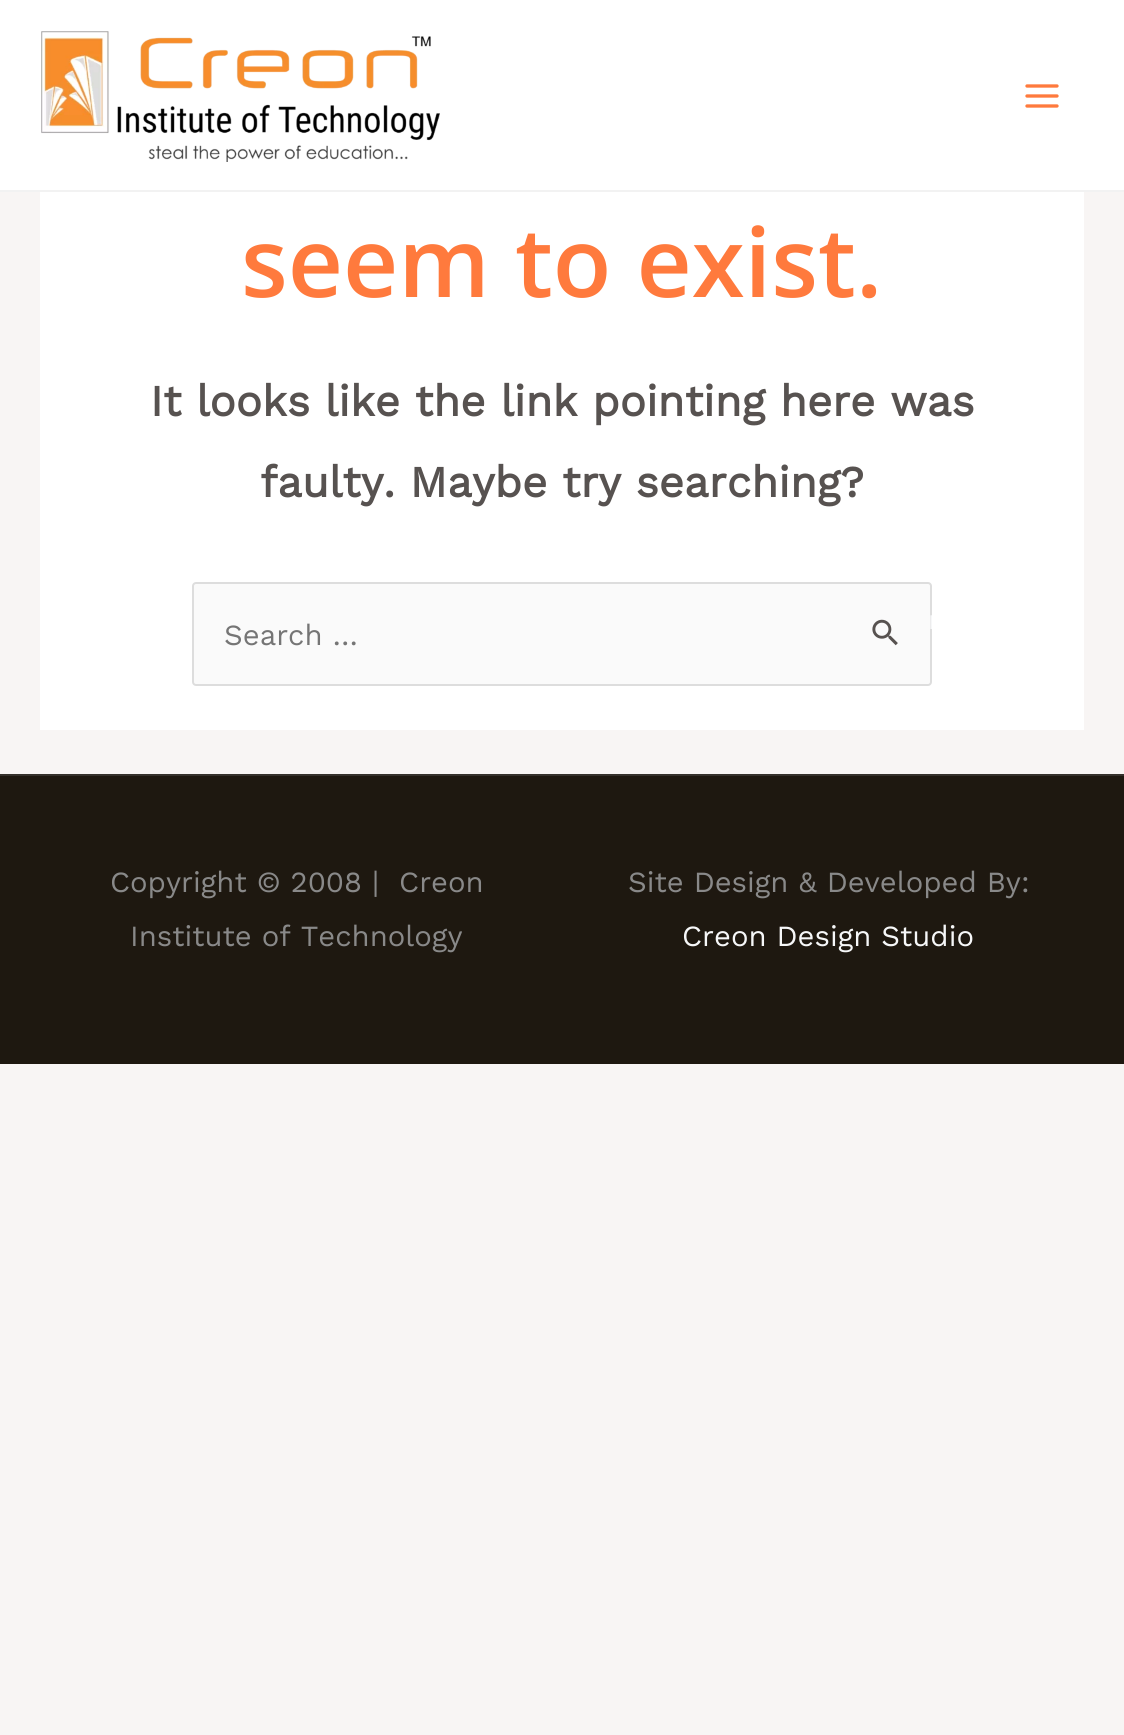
#include <cairo.h>
#include <math.h>
#include <stddef.h>

typedef struct { double x, y; const char *s; } line_t;

static void ink(cairo_t *ctx, unsigned color) {
    cairo_set_source_rgb(ctx, (color >> 16) / 255.0, (color >> 8 & 255) / 255.0, (color & 255) / 255.0);
}

static void round_path(cairo_t *ctx, double x, double y, double w, double h, double r) {
    cairo_new_sub_path(ctx);
    cairo_arc(ctx, x + w - r, y + h - r, r, 0, M_PI / 2);
    cairo_arc(ctx, x + r, y + h - r, r, M_PI / 2, M_PI);
    cairo_arc(ctx, x + r, y + r, r, M_PI, 1.5 * M_PI);
    cairo_arc(ctx, x + w - r, y + r, r, 1.5 * M_PI, 2 * M_PI);
    cairo_close_path(ctx);
}

static void paste(cairo_t *ctx, const char *path, double x, double y, double w, double h) {
    cairo_surface_t *image = cairo_image_surface_create_from_png(path);
    cairo_save(ctx);
    cairo_set_source_surface(ctx, image, x, y);
    cairo_rectangle(ctx, x, y, w, h);
    cairo_fill(ctx);
    cairo_restore(ctx);
    cairo_surface_destroy(image);
}

int main(void) {
    cairo_surface_t *surface = cairo_image_surface_create(CAIRO_FORMAT_RGB24, 1124, 1735);
    cairo_t *ctx = cairo_create(surface);
    cairo_font_options_t *options = cairo_font_options_create();
    cairo_font_options_set_hint_metrics(options, CAIRO_HINT_METRICS_OFF);
    cairo_font_options_set_hint_style(options, CAIRO_HINT_STYLE_NONE);
    cairo_set_font_options(ctx, options);
    cairo_set_miter_limit(ctx, 4);
    ink(ctx, 0xF8F5F4);
    cairo_paint(ctx);
    ink(ctx, 0xFFFFFF);
    cairo_rectangle(ctx, 0, 0, 1124, 190);
    cairo_fill(ctx);
    ink(ctx, 0xF2F2F2);
    cairo_rectangle(ctx, 0, 190, 1124, 2);
    cairo_fill(ctx);
    paste(ctx, "media/1.png", 41, 31, 399, 131);
    paste(ctx, "media/2.png", 1025, 84, 34, 24);
    ink(ctx, 0xFFFFFF);
    cairo_rectangle(ctx, 40, 192, 1044, 538);
    cairo_fill(ctx);
    cairo_select_font_face(ctx, "Open Sans SemiBold", CAIRO_FONT_SLANT_NORMAL, CAIRO_FONT_WEIGHT_NORMAL);
    cairo_set_font_size(ctx, 96);
    ink(ctx, 0xFF7A3D);
    cairo_move_to(ctx, 241, 297);
    cairo_show_text(ctx, "seem to exist.");
    cairo_select_font_face(ctx, "Work Sans", CAIRO_FONT_SLANT_NORMAL, CAIRO_FONT_WEIGHT_BOLD);
    cairo_set_font_size(ctx, 43.75);
    ink(ctx, 0x575250);
    cairo_move_to(ctx, 150, 416);
    cairo_show_text(ctx, "It looks like the link pointing here was");
    cairo_move_to(ctx, 260, 497);
    cairo_show_text(ctx, "faulty. Maybe try searching?");
    ink(ctx, 0xFAFAFA);
    round_path(ctx, 193, 583, 738, 102, 3);
    cairo_fill_preserve(ctx);
    ink(ctx, 0xDDDDDD);
    cairo_stroke(ctx);
    cairo_select_font_face(ctx, "Work Sans", CAIRO_FONT_SLANT_NORMAL, CAIRO_FONT_WEIGHT_NORMAL);
    cairo_set_font_size(ctx, 29.25);
    ink(ctx, 0x757575);
    cairo_move_to(ctx, 224, 645);
    cairo_show_text(ctx, "Search …");
    paste(ctx, "media/3.png", 872, 619, 26, 27);
    cairo_save(ctx);
    round_path(ctx, 842, 582, 90, 78, 4);
    cairo_clip(ctx);
    cairo_select_font_face(ctx, "Work Sans", CAIRO_FONT_SLANT_NORMAL, CAIRO_FONT_WEIGHT_BOLD);
    cairo_set_font_size(ctx, 26);
    ink(ctx, 0xF6F7F8);
    cairo_move_to(ctx, 928, 629);
    cairo_show_text(ctx, "r");
    cairo_restore(ctx);
    ink(ctx, 0x1E1810);
    cairo_rectangle(ctx, 0, 776, 1124, 288);
    cairo_fill(ctx);
    ink(ctx, 0x35302B);
    cairo_rectangle(ctx, 0, 774, 1124, 2);
    cairo_fill(ctx);
    ink(ctx, 0x898989);
    {
        static const line_t items[] = {
            {110, 892, "Copyright © 2008 |  Creon"},
            {130, 946, "Institute of Technology"},
            {628, 892, "Site Design & Developed By:"},
        };
        for (size_t i = 0; i < sizeof items / sizeof *items; i++) {
            cairo_move_to(ctx, items[i].x, items[i].y);
            cairo_show_text(ctx, items[i].s);
        }
    }
    ink(ctx, 0xF6F7F8);
    cairo_move_to(ctx, 682, 946);
    cairo_show_text(ctx, "Creon Design Studio");
    cairo_surface_write_to_png(surface, "image.png");
    cairo_font_options_destroy(options);
    cairo_destroy(ctx);
    cairo_surface_destroy(surface);
    return 0;
}
